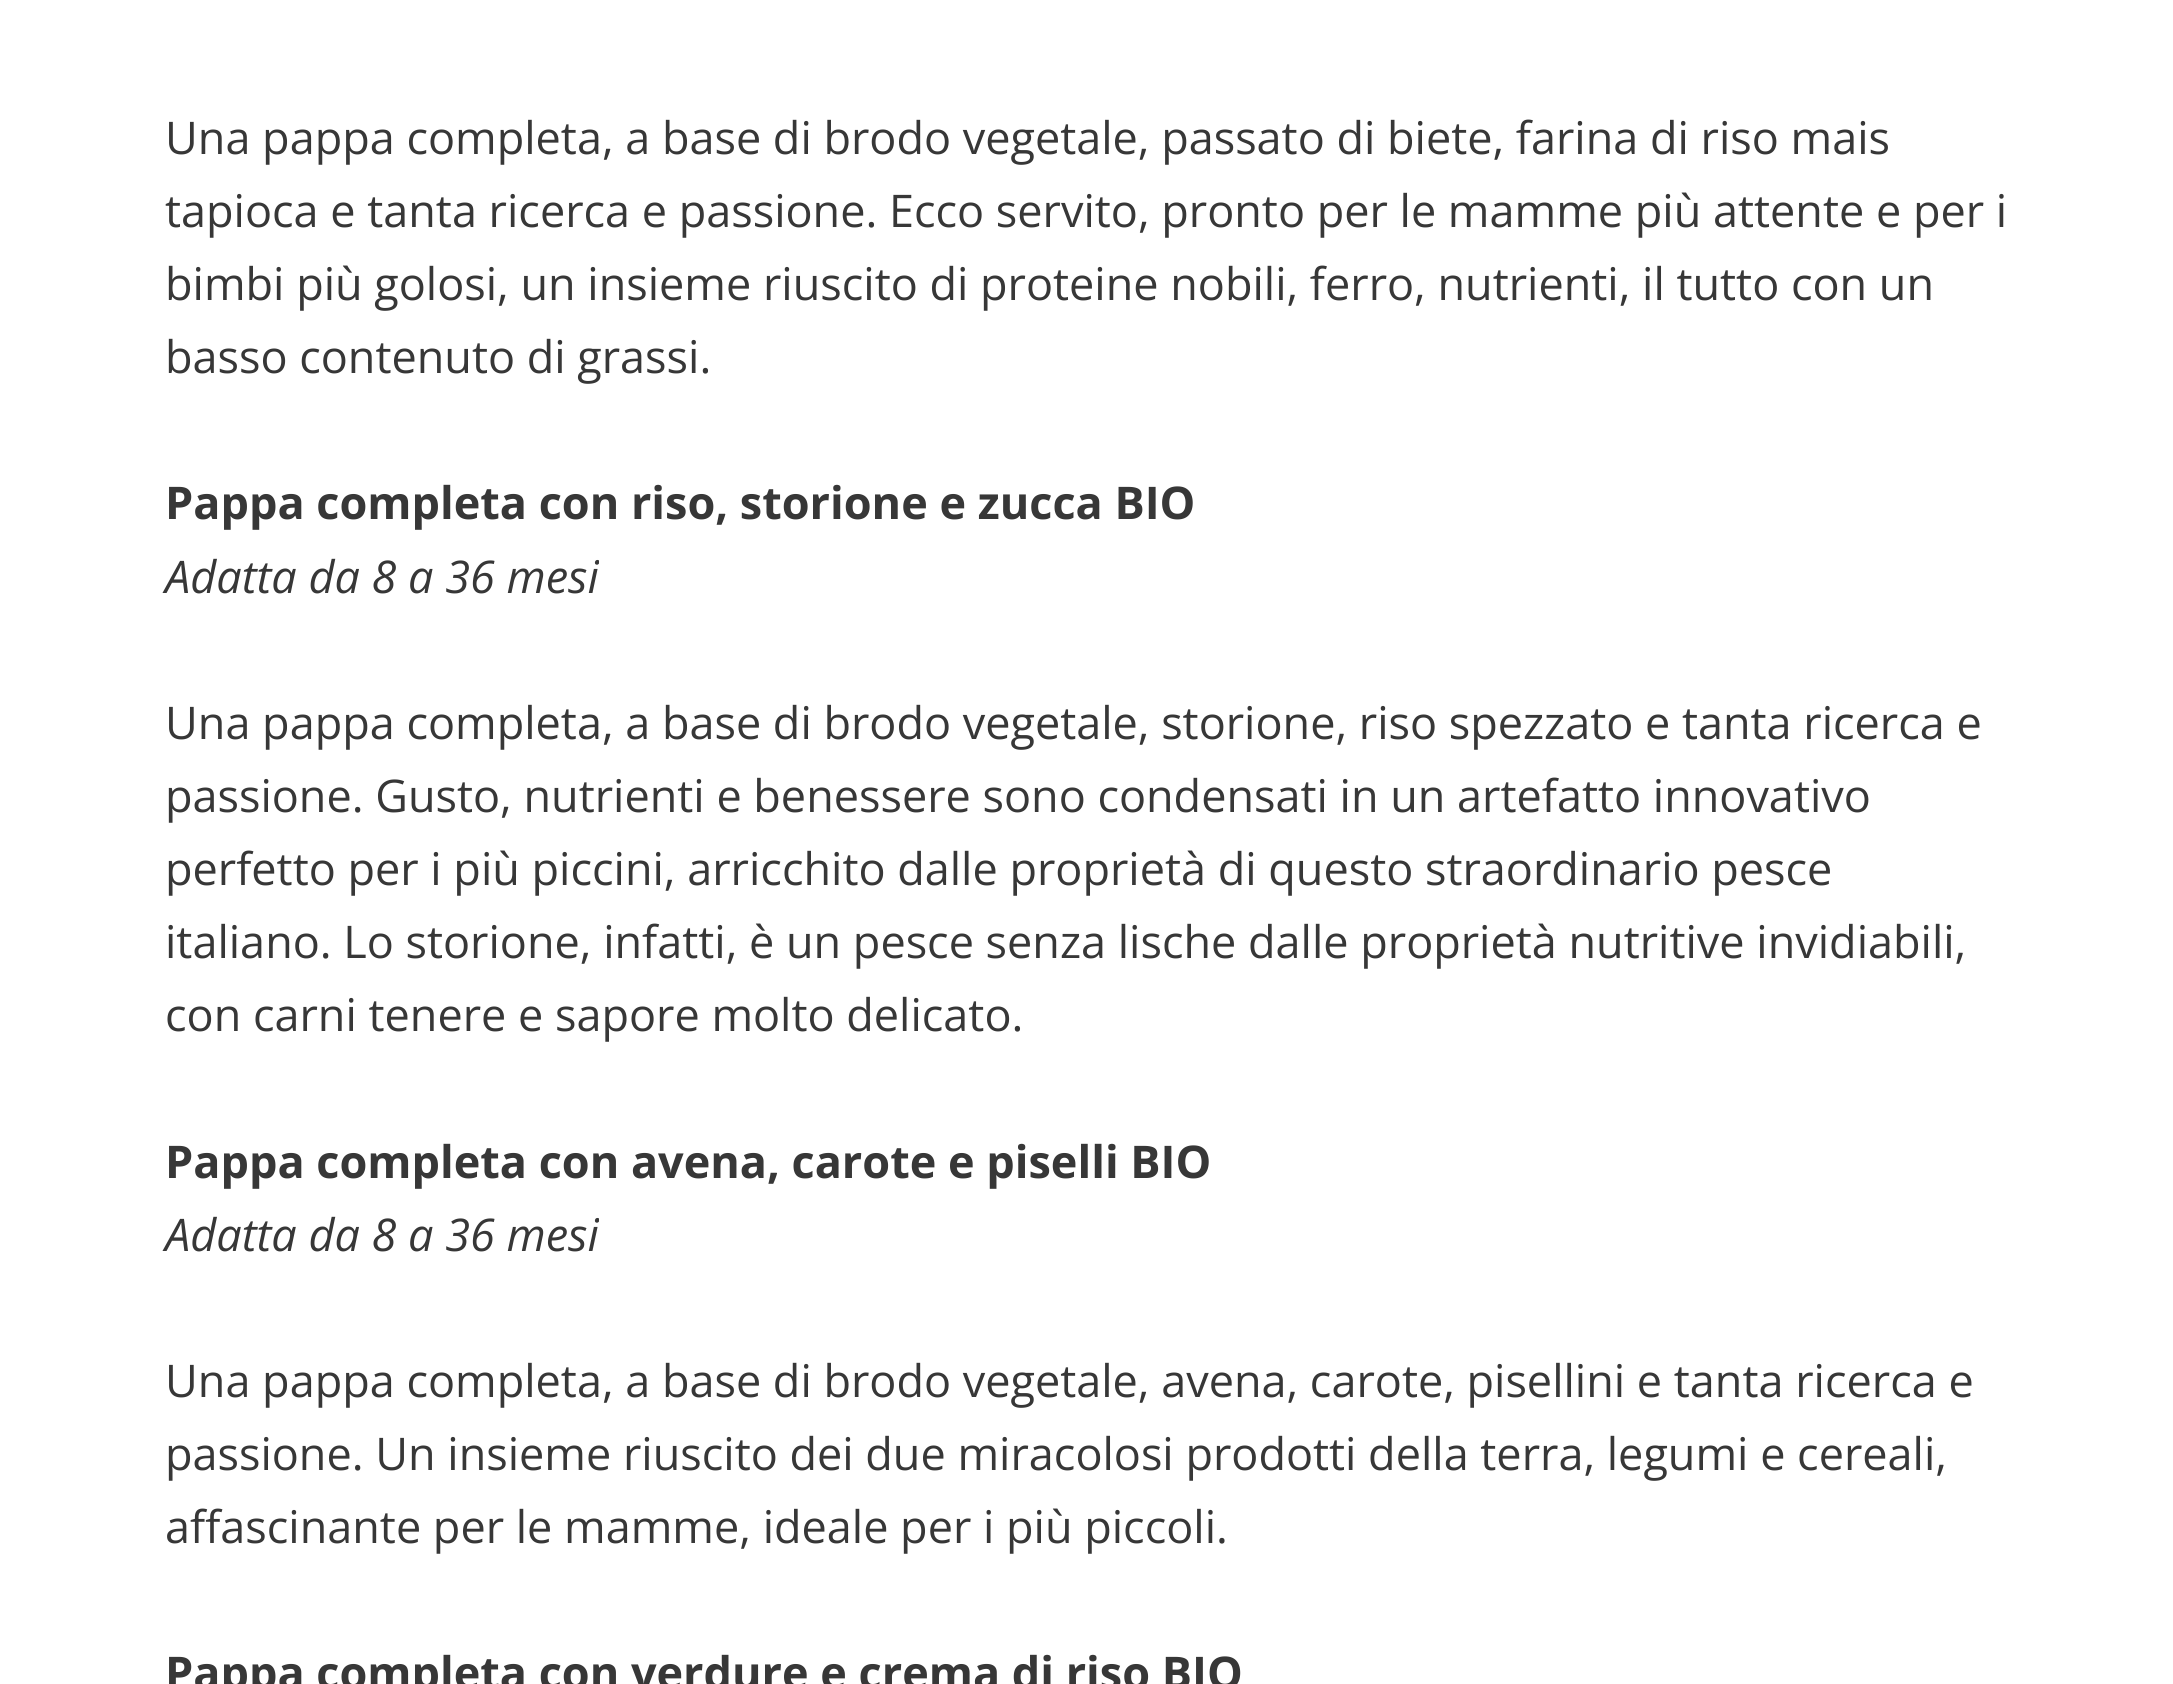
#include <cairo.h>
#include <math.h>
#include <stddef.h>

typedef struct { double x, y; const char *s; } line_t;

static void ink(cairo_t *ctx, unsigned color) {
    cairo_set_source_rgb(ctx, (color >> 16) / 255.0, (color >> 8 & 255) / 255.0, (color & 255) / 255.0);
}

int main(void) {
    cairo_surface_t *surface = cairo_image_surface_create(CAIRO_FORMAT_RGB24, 2173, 1684);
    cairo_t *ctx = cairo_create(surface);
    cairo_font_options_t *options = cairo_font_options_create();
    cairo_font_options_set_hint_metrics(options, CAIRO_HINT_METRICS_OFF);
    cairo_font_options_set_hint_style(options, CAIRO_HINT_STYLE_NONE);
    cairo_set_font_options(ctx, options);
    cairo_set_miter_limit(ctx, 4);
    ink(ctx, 0xFFFFFF);
    cairo_paint(ctx);
    cairo_select_font_face(ctx, "Open Sans", CAIRO_FONT_SLANT_NORMAL, CAIRO_FONT_WEIGHT_NORMAL);
    cairo_set_font_size(ctx, 45);
    ink(ctx, 0x373737);
    {
        static const line_t items[] = {
            {165, 154, "Una pappa completa, a base di brodo vegetale, passato di biete, farina di riso mais"},
            {165, 227, "tapioca e tanta ricerca e passione. Ecco servito, pronto per le mamme più attente e per i"},
            {165, 300, "bimbi più golosi, un insieme riuscito di proteine nobili, ferro, nutrienti, il tutto con un"},
            {165, 373, "basso contenuto di grassi."},
        };
        for (size_t i = 0; i < sizeof items / sizeof *items; i++) {
            cairo_move_to(ctx, items[i].x, items[i].y);
            cairo_show_text(ctx, items[i].s);
        }
    }
    cairo_select_font_face(ctx, "Open Sans", CAIRO_FONT_SLANT_NORMAL, CAIRO_FONT_WEIGHT_BOLD);
    cairo_move_to(ctx, 165, 519);
    cairo_show_text(ctx, "Pappa completa con riso, storione e zucca BIO");
    cairo_select_font_face(ctx, "Open Sans", CAIRO_FONT_SLANT_ITALIC, CAIRO_FONT_WEIGHT_NORMAL);
    cairo_move_to(ctx, 165, 593);
    cairo_show_text(ctx, "Adatta da 8 a 36 mesi");
    cairo_select_font_face(ctx, "Open Sans", CAIRO_FONT_SLANT_NORMAL, CAIRO_FONT_WEIGHT_NORMAL);
    {
        static const line_t items[] = {
            {165, 739, "Una pappa completa, a base di brodo vegetale, storione, riso spezzato e tanta ricerca e"},
            {165, 812, "passione. Gusto, nutrienti e benessere sono condensati in un artefatto innovativo"},
            {165, 885, "perfetto per i più piccini, arricchito dalle proprietà di questo straordinario pesce"},
            {165, 958, "italiano. Lo storione, infatti, è un pesce senza lische dalle proprietà nutritive invidiabili,"},
            {165, 1031, "con carni tenere e sapore molto delicato."},
        };
        for (size_t i = 0; i < sizeof items / sizeof *items; i++) {
            cairo_move_to(ctx, items[i].x, items[i].y);
            cairo_show_text(ctx, items[i].s);
        }
    }
    cairo_select_font_face(ctx, "Open Sans", CAIRO_FONT_SLANT_NORMAL, CAIRO_FONT_WEIGHT_BOLD);
    cairo_move_to(ctx, 165, 1178);
    cairo_show_text(ctx, "Pappa completa con avena, carote e piselli BIO");
    cairo_select_font_face(ctx, "Open Sans", CAIRO_FONT_SLANT_ITALIC, CAIRO_FONT_WEIGHT_NORMAL);
    cairo_move_to(ctx, 165, 1251);
    cairo_show_text(ctx, "Adatta da 8 a 36 mesi");
    cairo_select_font_face(ctx, "Open Sans", CAIRO_FONT_SLANT_NORMAL, CAIRO_FONT_WEIGHT_NORMAL);
    {
        static const line_t items[] = {
            {165, 1397, "Una pappa completa, a base di brodo vegetale, avena, carote, pisellini e tanta ricerca e"},
            {165, 1470, "passione. Un insieme riuscito dei due miracolosi prodotti della terra, legumi e cereali,"},
            {165, 1543, "affascinante per le mamme, ideale per i più piccoli."},
        };
        for (size_t i = 0; i < sizeof items / sizeof *items; i++) {
            cairo_move_to(ctx, items[i].x, items[i].y);
            cairo_show_text(ctx, items[i].s);
        }
    }
    cairo_select_font_face(ctx, "Open Sans", CAIRO_FONT_SLANT_NORMAL, CAIRO_FONT_WEIGHT_BOLD);
    cairo_move_to(ctx, 165, 1689);
    cairo_show_text(ctx, "Pappa completa con verdure e crema di riso BIO");
    cairo_surface_write_to_png(surface, "image.png");
    cairo_font_options_destroy(options);
    cairo_destroy(ctx);
    cairo_surface_destroy(surface);
    return 0;
}
